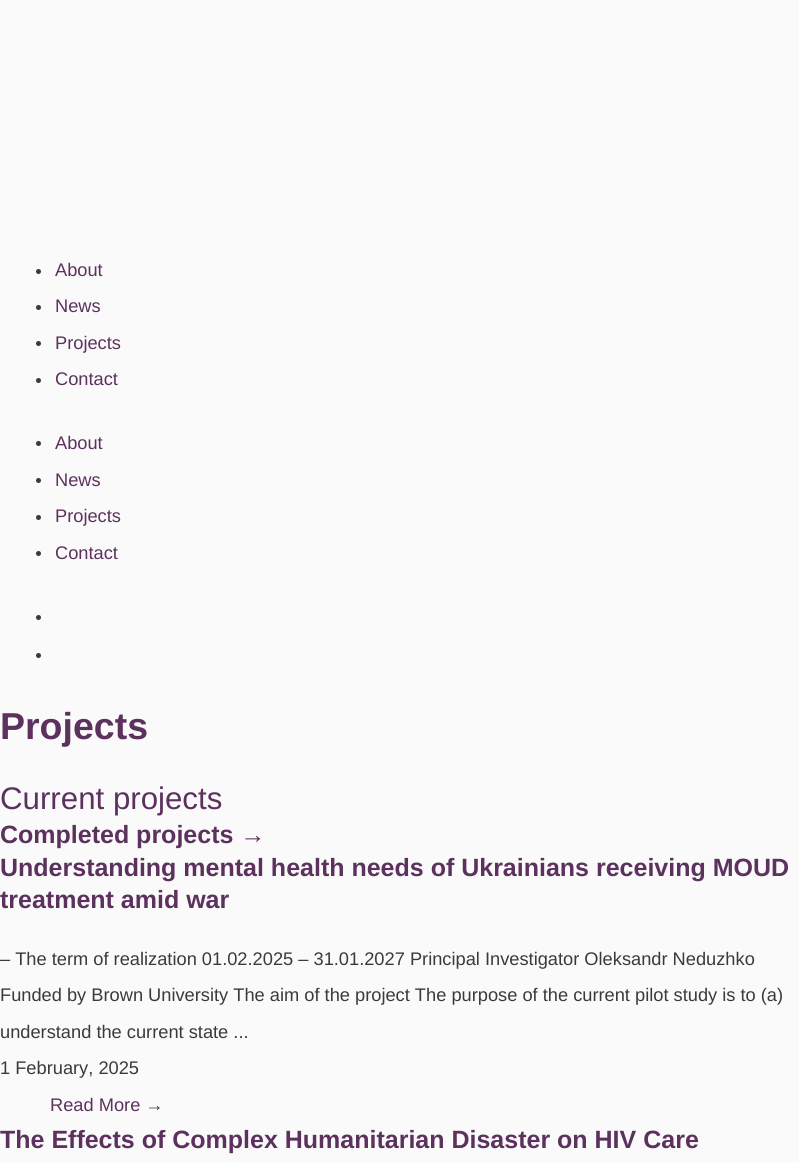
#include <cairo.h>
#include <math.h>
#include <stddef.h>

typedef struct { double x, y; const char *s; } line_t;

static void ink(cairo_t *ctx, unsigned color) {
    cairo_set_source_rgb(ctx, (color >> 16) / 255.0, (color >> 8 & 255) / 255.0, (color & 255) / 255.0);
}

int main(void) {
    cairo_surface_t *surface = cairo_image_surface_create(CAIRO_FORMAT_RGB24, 799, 1162);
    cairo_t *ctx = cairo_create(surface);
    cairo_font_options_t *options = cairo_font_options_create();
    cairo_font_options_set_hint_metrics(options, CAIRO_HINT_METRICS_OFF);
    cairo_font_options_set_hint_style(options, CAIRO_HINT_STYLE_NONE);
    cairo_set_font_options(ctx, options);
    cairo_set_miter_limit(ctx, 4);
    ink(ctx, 0xFAFAFA);
    cairo_paint(ctx);
    ink(ctx, 0x3A3A3A);
    cairo_arc(ctx, 38.5, 271.5, 2.5, 0, 2 * M_PI);
    cairo_fill(ctx);
    cairo_select_font_face(ctx, "Liberation Sans", CAIRO_FONT_SLANT_NORMAL, CAIRO_FONT_WEIGHT_NORMAL);
    cairo_set_font_size(ctx, 18.25);
    ink(ctx, 0x5C315E);
    cairo_move_to(ctx, 55, 276);
    cairo_show_text(ctx, "About");
    ink(ctx, 0x3A3A3A);
    cairo_new_path(ctx);
    cairo_arc(ctx, 38.5, 307.5, 2.5, 0, 2 * M_PI);
    cairo_fill(ctx);
    ink(ctx, 0x5C315E);
    cairo_move_to(ctx, 55, 312);
    cairo_show_text(ctx, "News");
    ink(ctx, 0x3A3A3A);
    cairo_new_path(ctx);
    cairo_arc(ctx, 38.5, 343.5, 2.5, 0, 2 * M_PI);
    cairo_fill(ctx);
    ink(ctx, 0x5C315E);
    cairo_move_to(ctx, 55, 349);
    cairo_show_text(ctx, "Projects");
    ink(ctx, 0x3A3A3A);
    cairo_new_path(ctx);
    cairo_arc(ctx, 38.5, 380.5, 2.5, 0, 2 * M_PI);
    cairo_fill(ctx);
    ink(ctx, 0x5C315E);
    cairo_move_to(ctx, 55, 385);
    cairo_show_text(ctx, "Contact");
    ink(ctx, 0x3A3A3A);
    cairo_new_path(ctx);
    cairo_arc(ctx, 38.5, 443.5, 2.5, 0, 2 * M_PI);
    cairo_fill(ctx);
    ink(ctx, 0x5C315E);
    cairo_move_to(ctx, 55, 449);
    cairo_show_text(ctx, "About");
    ink(ctx, 0x3A3A3A);
    cairo_new_path(ctx);
    cairo_arc(ctx, 38.5, 480.5, 2.5, 0, 2 * M_PI);
    cairo_fill(ctx);
    ink(ctx, 0x5C315E);
    cairo_move_to(ctx, 55, 486);
    cairo_show_text(ctx, "News");
    ink(ctx, 0x3A3A3A);
    cairo_new_path(ctx);
    cairo_arc(ctx, 38.5, 517.5, 2.5, 0, 2 * M_PI);
    cairo_fill(ctx);
    ink(ctx, 0x5C315E);
    cairo_move_to(ctx, 55, 522);
    cairo_show_text(ctx, "Projects");
    ink(ctx, 0x3A3A3A);
    cairo_new_path(ctx);
    cairo_arc(ctx, 38.5, 553.5, 2.5, 0, 2 * M_PI);
    cairo_fill(ctx);
    ink(ctx, 0x5C315E);
    cairo_move_to(ctx, 55, 559);
    cairo_show_text(ctx, "Contact");
    ink(ctx, 0x3A3A3A);
    cairo_new_path(ctx);
    cairo_arc(ctx, 38.5, 617.5, 2.5, 0, 2 * M_PI);
    cairo_fill(ctx);
    cairo_arc(ctx, 38.5, 655.5, 2.5, 0, 2 * M_PI);
    cairo_fill(ctx);
    cairo_select_font_face(ctx, "Liberation Sans", CAIRO_FONT_SLANT_NORMAL, CAIRO_FONT_WEIGHT_BOLD);
    cairo_set_font_size(ctx, 37.5);
    ink(ctx, 0x5C315E);
    cairo_move_to(ctx, 0, 739);
    cairo_show_text(ctx, "Projects");
    cairo_select_font_face(ctx, "Liberation Sans", CAIRO_FONT_SLANT_NORMAL, CAIRO_FONT_WEIGHT_NORMAL);
    cairo_set_font_size(ctx, 31.25);
    cairo_move_to(ctx, 0, 809);
    cairo_show_text(ctx, "Current projects");
    cairo_select_font_face(ctx, "Liberation Sans", CAIRO_FONT_SLANT_NORMAL, CAIRO_FONT_WEIGHT_BOLD);
    cairo_set_font_size(ctx, 25);
    {
        static const line_t items[] = {
            {0, 843, "Completed projects →"},
            {0, 876, "Understanding mental health needs of Ukrainians receiving MOUD"},
            {0, 908, "treatment amid war"},
        };
        for (size_t i = 0; i < sizeof items / sizeof *items; i++) {
            cairo_move_to(ctx, items[i].x, items[i].y);
            cairo_show_text(ctx, items[i].s);
        }
    }
    cairo_select_font_face(ctx, "Liberation Sans", CAIRO_FONT_SLANT_NORMAL, CAIRO_FONT_WEIGHT_NORMAL);
    cairo_set_font_size(ctx, 18.25);
    ink(ctx, 0x3A3A3A);
    {
        static const line_t items[] = {
            {0, 965, "– The term of realization 01.02.2025 – 31.01.2027 Principal Investigator Oleksandr Neduzhko"},
            {0, 1001, "Funded by Brown University The aim of the project The purpose of the current pilot study is to (a)"},
            {0, 1038, "understand the current state ..."},
            {0, 1074, "1 February, 2025"},
        };
        for (size_t i = 0; i < sizeof items / sizeof *items; i++) {
            cairo_move_to(ctx, items[i].x, items[i].y);
            cairo_show_text(ctx, items[i].s);
        }
    }
    ink(ctx, 0x5C315E);
    cairo_move_to(ctx, 50, 1111);
    cairo_show_text(ctx, "Read More →");
    cairo_select_font_face(ctx, "Liberation Sans", CAIRO_FONT_SLANT_NORMAL, CAIRO_FONT_WEIGHT_BOLD);
    cairo_set_font_size(ctx, 25);
    cairo_move_to(ctx, 0, 1148);
    cairo_show_text(ctx, "The Effects of Complex Humanitarian Disaster on HIV Care");
    cairo_surface_write_to_png(surface, "image.png");
    cairo_font_options_destroy(options);
    cairo_destroy(ctx);
    cairo_surface_destroy(surface);
    return 0;
}
